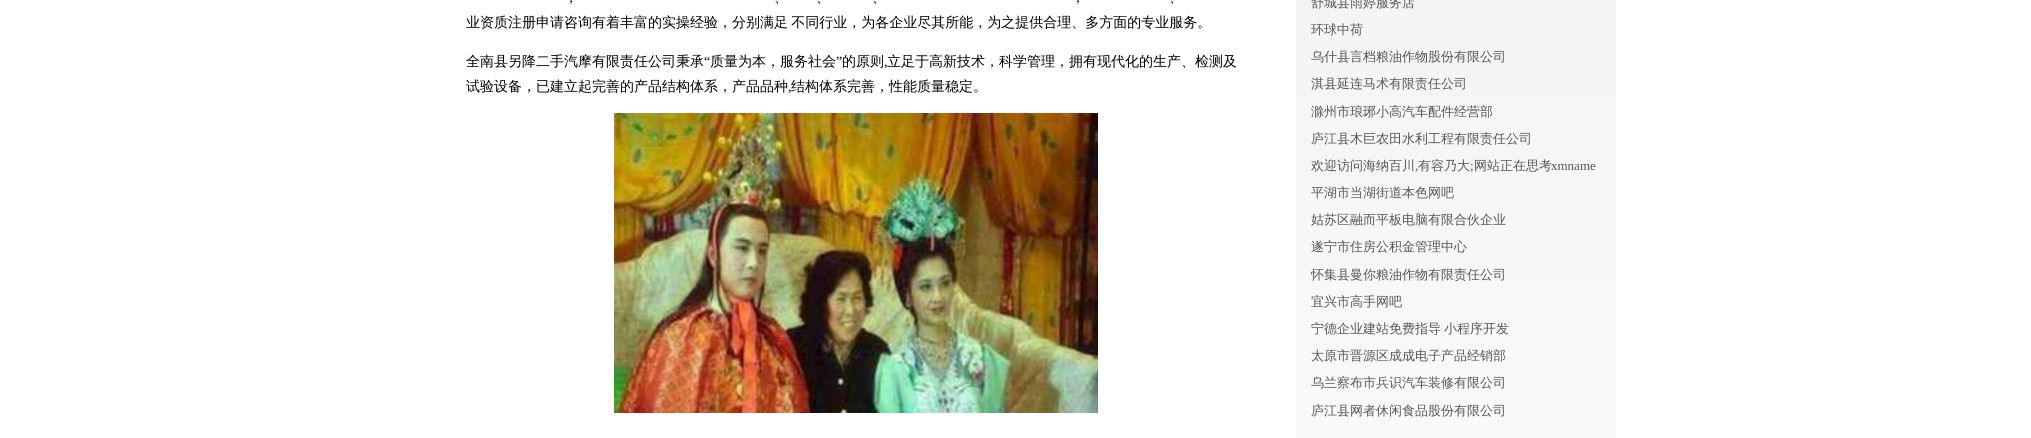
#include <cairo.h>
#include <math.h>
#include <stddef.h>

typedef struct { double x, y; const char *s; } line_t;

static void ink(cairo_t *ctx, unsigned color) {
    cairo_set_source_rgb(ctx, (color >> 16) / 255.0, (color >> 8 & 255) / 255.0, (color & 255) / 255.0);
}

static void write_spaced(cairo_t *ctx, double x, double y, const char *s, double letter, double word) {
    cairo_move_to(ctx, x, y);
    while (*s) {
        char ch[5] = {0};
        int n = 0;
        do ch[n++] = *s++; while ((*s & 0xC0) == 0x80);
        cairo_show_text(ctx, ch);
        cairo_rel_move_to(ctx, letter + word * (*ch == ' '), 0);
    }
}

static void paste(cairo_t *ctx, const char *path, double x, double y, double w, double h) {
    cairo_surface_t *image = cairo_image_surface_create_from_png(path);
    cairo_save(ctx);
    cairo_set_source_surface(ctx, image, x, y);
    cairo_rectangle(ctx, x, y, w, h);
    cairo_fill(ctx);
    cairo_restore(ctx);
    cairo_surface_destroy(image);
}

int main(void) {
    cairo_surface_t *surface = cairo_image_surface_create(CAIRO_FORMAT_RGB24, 2031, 438);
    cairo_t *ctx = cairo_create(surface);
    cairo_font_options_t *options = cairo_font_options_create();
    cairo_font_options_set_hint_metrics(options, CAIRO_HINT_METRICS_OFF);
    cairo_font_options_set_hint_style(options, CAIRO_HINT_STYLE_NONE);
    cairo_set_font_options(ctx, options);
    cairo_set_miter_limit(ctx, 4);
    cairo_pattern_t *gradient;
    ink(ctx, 0xFFFFFF);
    cairo_paint(ctx);
    cairo_select_font_face(ctx, "WenQuanYi Zen Hei Medium", CAIRO_FONT_SLANT_NORMAL, CAIRO_FONT_WEIGHT_NORMAL);
    cairo_set_font_size(ctx, 14);
    ink(ctx, 0x000000);
    {
        static const line_t items[] = {
            {564, 2, "，"},
            {774, 2, "、"},
            {816, 2, "、"},
            {872, 2, "、"},
            {1071, 2, "，"},
            {1169, 2, "、"},
            {466, 27, "业资质注册申请咨询有着丰富的实操经验，分别满足 不同行业，为各企业尽其所能，为之提供合理、多方面的专业服务。"},
        };
        for (size_t i = 0; i < sizeof items / sizeof *items; i++) {
            write_spaced(ctx, items[i].x, items[i].y, items[i].s, 0, -1);
        }
    }
    cairo_move_to(ctx, 466, 66);
    cairo_show_text(ctx, "全南县另降二手汽摩有限责任公司秉承");
    cairo_select_font_face(ctx, "Liberation Serif", CAIRO_FONT_SLANT_NORMAL, CAIRO_FONT_WEIGHT_NORMAL);
    cairo_move_to(ctx, 704, 66);
    cairo_show_text(ctx, "“");
    cairo_select_font_face(ctx, "WenQuanYi Zen Hei Medium", CAIRO_FONT_SLANT_NORMAL, CAIRO_FONT_WEIGHT_NORMAL);
    cairo_move_to(ctx, 710, 66);
    cairo_show_text(ctx, "质量为本，服务社会");
    cairo_select_font_face(ctx, "Liberation Serif", CAIRO_FONT_SLANT_NORMAL, CAIRO_FONT_WEIGHT_NORMAL);
    cairo_move_to(ctx, 836, 66);
    cairo_show_text(ctx, "”");
    cairo_select_font_face(ctx, "WenQuanYi Zen Hei Medium", CAIRO_FONT_SLANT_NORMAL, CAIRO_FONT_WEIGHT_NORMAL);
    cairo_move_to(ctx, 842, 66);
    cairo_show_text(ctx, "的原则");
    cairo_move_to(ctx, 887, 66);
    cairo_show_text(ctx, "立足于高新技术，科学管理，拥有现代化的生产、检测及");
    cairo_select_font_face(ctx, "Liberation Serif", CAIRO_FONT_SLANT_NORMAL, CAIRO_FONT_WEIGHT_NORMAL);
    cairo_move_to(ctx, 884, 66);
    cairo_show_text(ctx, ",");
    cairo_select_font_face(ctx, "WenQuanYi Zen Hei Medium", CAIRO_FONT_SLANT_NORMAL, CAIRO_FONT_WEIGHT_NORMAL);
    cairo_move_to(ctx, 466, 91);
    cairo_show_text(ctx, "试验设备，已建立起完善的产品结构体系，产品品种");
    cairo_select_font_face(ctx, "Liberation Serif", CAIRO_FONT_SLANT_NORMAL, CAIRO_FONT_WEIGHT_NORMAL);
    cairo_move_to(ctx, 788, 91);
    cairo_show_text(ctx, ",");
    cairo_select_font_face(ctx, "WenQuanYi Zen Hei Medium", CAIRO_FONT_SLANT_NORMAL, CAIRO_FONT_WEIGHT_NORMAL);
    cairo_move_to(ctx, 791, 91);
    cairo_show_text(ctx, "结构体系完善，性能质量稳定。");
    paste(ctx, "media/1.png", 614, 113, 484, 300);
    gradient = cairo_pattern_create_linear(1456, -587, 1456, 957);
    cairo_pattern_add_color_stop_rgba(gradient, 0, 0.933, 0.933, 0.933, 1);
    cairo_pattern_add_color_stop_rgba(gradient, 1, 1, 1, 1, 1);
    cairo_set_source(ctx, gradient);
    cairo_pattern_destroy(gradient);
    cairo_rectangle(ctx, 1296, 0, 320, 438);
    cairo_fill(ctx);
    cairo_set_font_size(ctx, 13);
    ink(ctx, 0x565656);
    {
        static const line_t items[] = {
            {1311, 7, "舒城县雨婷服务店"},
            {1311, 34, "环球中荷"},
            {1311, 61, "乌什县言档粮油作物股份有限公司"},
            {1311, 88, "淇县延连马术有限责任公司"},
            {1311, 116, "滁州市琅琊小高汽车配件经营部"},
            {1311, 143, "庐江县木巨农田水利工程有限责任公司"},
            {1311, 170, "欢迎访问海纳百川"},
            {1418, 170, "有容乃大 网站正在思考"},
        };
        for (size_t i = 0; i < sizeof items / sizeof *items; i++) {
            cairo_move_to(ctx, items[i].x, items[i].y);
            cairo_show_text(ctx, items[i].s);
        }
    }
    cairo_select_font_face(ctx, "Liberation Serif", CAIRO_FONT_SLANT_NORMAL, CAIRO_FONT_WEIGHT_NORMAL);
    {
        static const line_t items[] = {
            {1415, 170, ","},
            {1470, 170, ";"},
            {1551, 170, "xmname"},
        };
        for (size_t i = 0; i < sizeof items / sizeof *items; i++) {
            cairo_move_to(ctx, items[i].x, items[i].y);
            cairo_show_text(ctx, items[i].s);
        }
    }
    cairo_select_font_face(ctx, "WenQuanYi Zen Hei Medium", CAIRO_FONT_SLANT_NORMAL, CAIRO_FONT_WEIGHT_NORMAL);
    {
        static const line_t items[] = {
            {1311, 197, "平湖市当湖街道本色网吧"},
            {1311, 224, "姑苏区融而平板电脑有限合伙企业"},
            {1311, 251, "遂宁市住房公积金管理中心"},
            {1311, 279, "怀集县曼你粮油作物有限责任公司"},
            {1311, 306, "宜兴市高手网吧"},
        };
        for (size_t i = 0; i < sizeof items / sizeof *items; i++) {
            cairo_move_to(ctx, items[i].x, items[i].y);
            cairo_show_text(ctx, items[i].s);
        }
    }
    write_spaced(ctx, 1311, 333, "宁德企业建站免费指导 小程序开发", 0, -1);
    {
        static const line_t items[] = {
            {1311, 360, "太原市晋源区成成电子产品经销部"},
            {1311, 387, "乌兰察布市兵识汽车装修有限公司"},
            {1311, 415, "庐江县网者休闲食品股份有限公司"},
        };
        for (size_t i = 0; i < sizeof items / sizeof *items; i++) {
            cairo_move_to(ctx, items[i].x, items[i].y);
            cairo_show_text(ctx, items[i].s);
        }
    }
    cairo_surface_write_to_png(surface, "image.png");
    cairo_font_options_destroy(options);
    cairo_destroy(ctx);
    cairo_surface_destroy(surface);
    return 0;
}
